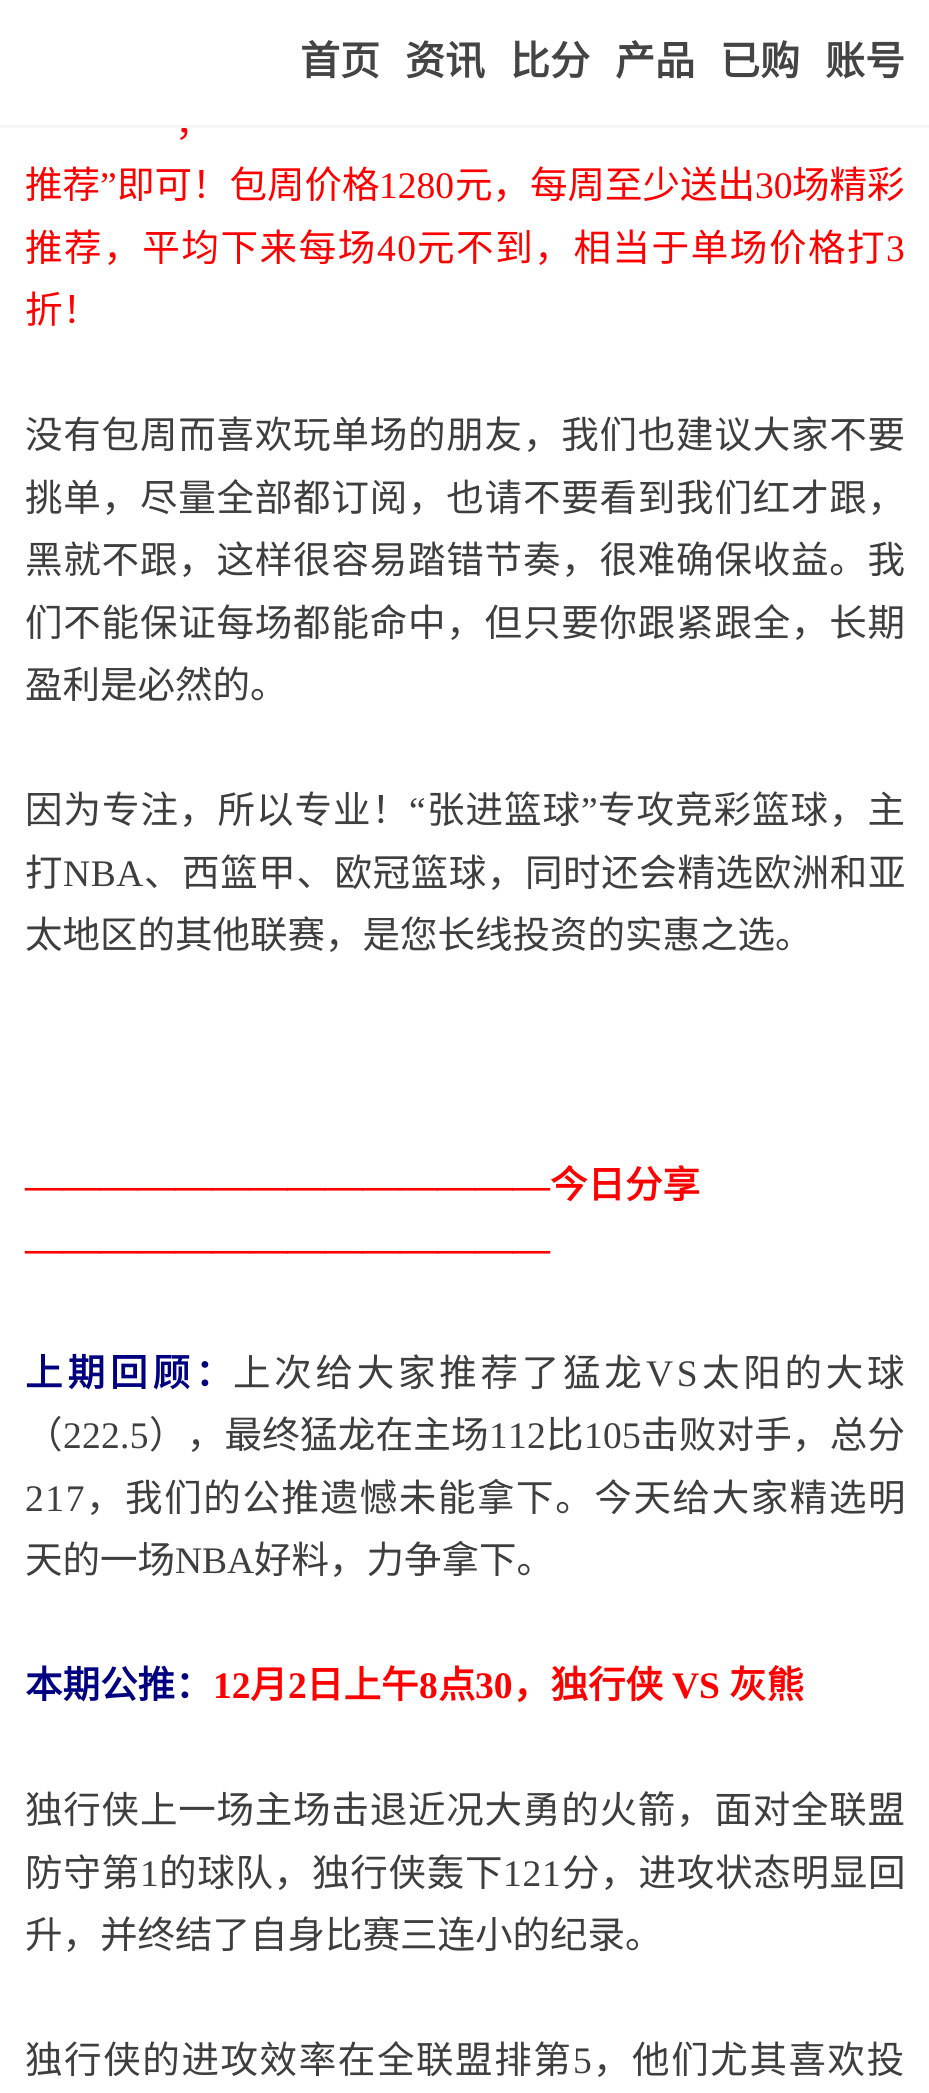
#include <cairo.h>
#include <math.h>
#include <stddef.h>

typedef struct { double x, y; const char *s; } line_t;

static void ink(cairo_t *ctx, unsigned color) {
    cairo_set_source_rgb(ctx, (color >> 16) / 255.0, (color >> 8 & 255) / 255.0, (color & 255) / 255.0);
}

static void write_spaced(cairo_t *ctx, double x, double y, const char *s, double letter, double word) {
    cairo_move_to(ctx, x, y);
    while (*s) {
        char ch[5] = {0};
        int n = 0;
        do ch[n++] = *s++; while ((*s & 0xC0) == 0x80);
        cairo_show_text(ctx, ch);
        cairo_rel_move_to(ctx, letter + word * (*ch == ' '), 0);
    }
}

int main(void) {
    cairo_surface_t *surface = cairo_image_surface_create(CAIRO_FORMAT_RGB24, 929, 2093);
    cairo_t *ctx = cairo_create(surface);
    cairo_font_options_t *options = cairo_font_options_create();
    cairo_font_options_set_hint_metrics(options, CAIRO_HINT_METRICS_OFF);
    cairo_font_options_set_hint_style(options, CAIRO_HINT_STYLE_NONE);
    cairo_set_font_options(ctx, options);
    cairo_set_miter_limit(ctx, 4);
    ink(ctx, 0xFFFFFF);
    cairo_paint(ctx);
    cairo_select_font_face(ctx, "Noto Sans CJK SC", CAIRO_FONT_SLANT_NORMAL, CAIRO_FONT_WEIGHT_NORMAL);
    cairo_set_font_size(ctx, 37.5);
    ink(ctx, 0xFF0000);
    cairo_move_to(ctx, 175, 136);
    cairo_show_text(ctx, "，");
    ink(ctx, 0xF5F5F5);
    cairo_rectangle(ctx, 0, 125, 929, 3);
    cairo_fill(ctx);
    cairo_select_font_face(ctx, "Noto Sans CJK SC", CAIRO_FONT_SLANT_NORMAL, CAIRO_FONT_WEIGHT_BOLD);
    cairo_set_font_size(ctx, 40);
    ink(ctx, 0x444444);
    {
        static const line_t items[] = {
            {300, 75, "首页"},
            {405, 75, "资讯"},
            {510, 75, "比分"},
            {615, 75, "产品"},
            {720, 75, "已购"},
            {825, 75, "账号"},
        };
        for (size_t i = 0; i < sizeof items / sizeof *items; i++) {
            cairo_move_to(ctx, items[i].x, items[i].y);
            cairo_show_text(ctx, items[i].s);
        }
    }
    cairo_select_font_face(ctx, "Noto Sans CJK SC", CAIRO_FONT_SLANT_NORMAL, CAIRO_FONT_WEIGHT_NORMAL);
    cairo_set_font_size(ctx, 37.5);
    ink(ctx, 0xFF0000);
    cairo_move_to(ctx, 25, 198);
    cairo_show_text(ctx, "推荐");
    cairo_select_font_face(ctx, "Liberation Serif", CAIRO_FONT_SLANT_NORMAL, CAIRO_FONT_WEIGHT_NORMAL);
    cairo_move_to(ctx, 100, 198);
    cairo_show_text(ctx, "”");
    cairo_select_font_face(ctx, "Noto Sans CJK SC", CAIRO_FONT_SLANT_NORMAL, CAIRO_FONT_WEIGHT_NORMAL);
    cairo_move_to(ctx, 117, 198);
    cairo_show_text(ctx, "即可！包周价格");
    cairo_select_font_face(ctx, "Liberation Serif", CAIRO_FONT_SLANT_NORMAL, CAIRO_FONT_WEIGHT_NORMAL);
    cairo_move_to(ctx, 379, 198);
    cairo_show_text(ctx, "1280");
    cairo_select_font_face(ctx, "Noto Sans CJK SC", CAIRO_FONT_SLANT_NORMAL, CAIRO_FONT_WEIGHT_NORMAL);
    cairo_move_to(ctx, 455, 198);
    cairo_show_text(ctx, "元，每周至少送出");
    cairo_select_font_face(ctx, "Liberation Serif", CAIRO_FONT_SLANT_NORMAL, CAIRO_FONT_WEIGHT_NORMAL);
    cairo_move_to(ctx, 755, 198);
    cairo_show_text(ctx, "30");
    cairo_select_font_face(ctx, "Noto Sans CJK SC", CAIRO_FONT_SLANT_NORMAL, CAIRO_FONT_WEIGHT_NORMAL);
    cairo_move_to(ctx, 792, 198);
    cairo_show_text(ctx, "场精彩");
    write_spaced(ctx, 25, 261, "推荐，平均下来每场", 1.6, 0);
    cairo_select_font_face(ctx, "Liberation Serif", CAIRO_FONT_SLANT_NORMAL, CAIRO_FONT_WEIGHT_NORMAL);
    write_spaced(ctx, 377, 261, "40", 1.6, 0);
    cairo_select_font_face(ctx, "Noto Sans CJK SC", CAIRO_FONT_SLANT_NORMAL, CAIRO_FONT_WEIGHT_NORMAL);
    write_spaced(ctx, 417, 261, "元不到，相当于单场价格打", 1.6, 0);
    cairo_select_font_face(ctx, "Liberation Serif", CAIRO_FONT_SLANT_NORMAL, CAIRO_FONT_WEIGHT_NORMAL);
    write_spaced(ctx, 886, 261, "3", 1.6, 0);
    cairo_select_font_face(ctx, "Noto Sans CJK SC", CAIRO_FONT_SLANT_NORMAL, CAIRO_FONT_WEIGHT_NORMAL);
    cairo_move_to(ctx, 25, 323);
    cairo_show_text(ctx, "折！");
    ink(ctx, 0x3E3E3E);
    {
        static const line_t items[] = {
            {25, 448, "没有包周而喜欢玩单场的朋友，我们也建议大家不要"},
            {25, 511, "挑单，尽量全部都订阅，也请不要看到我们红才跟，"},
            {25, 573, "黑就不跟，这样很容易踏错节奏，很难确保收益。我"},
            {25, 636, "们不能保证每场都能命中，但只要你跟紧跟全，长期"},
        };
        for (size_t i = 0; i < sizeof items / sizeof *items; i++) {
            write_spaced(ctx, items[i].x, items[i].y, items[i].s, 0.8, 0);
        }
    }
    cairo_move_to(ctx, 25, 698);
    cairo_show_text(ctx, "盈利是必然的。");
    write_spaced(ctx, 25, 823, "因为专注，所以专业！", 1, 0);
    cairo_select_font_face(ctx, "Liberation Serif", CAIRO_FONT_SLANT_NORMAL, CAIRO_FONT_WEIGHT_NORMAL);
    write_spaced(ctx, 409, 823, "“", 1, 0);
    cairo_select_font_face(ctx, "Noto Sans CJK SC", CAIRO_FONT_SLANT_NORMAL, CAIRO_FONT_WEIGHT_NORMAL);
    write_spaced(ctx, 427, 823, "张进篮球", 1, 0);
    cairo_select_font_face(ctx, "Liberation Serif", CAIRO_FONT_SLANT_NORMAL, CAIRO_FONT_WEIGHT_NORMAL);
    write_spaced(ctx, 581, 823, "”", 1, 0);
    cairo_select_font_face(ctx, "Noto Sans CJK SC", CAIRO_FONT_SLANT_NORMAL, CAIRO_FONT_WEIGHT_NORMAL);
    write_spaced(ctx, 598, 823, "专攻竞彩篮球，主", 1, 0);
    write_spaced(ctx, 25, 886, "打", 0.6, 0);
    cairo_select_font_face(ctx, "Liberation Serif", CAIRO_FONT_SLANT_NORMAL, CAIRO_FONT_WEIGHT_NORMAL);
    write_spaced(ctx, 63, 886, "NBA", 0.6, 0);
    cairo_select_font_face(ctx, "Noto Sans CJK SC", CAIRO_FONT_SLANT_NORMAL, CAIRO_FONT_WEIGHT_NORMAL);
    write_spaced(ctx, 144, 886, "、西篮甲、欧冠篮球，同时还会精选欧洲和亚", 0.6, 0);
    cairo_move_to(ctx, 25, 948);
    cairo_show_text(ctx, "太地区的其他联赛，是您长线投资的实惠之选。");
    cairo_select_font_face(ctx, "Liberation Serif", CAIRO_FONT_SLANT_NORMAL, CAIRO_FONT_WEIGHT_BOLD);
    ink(ctx, 0xFF0000);
    cairo_move_to(ctx, 25, 1198);
    cairo_show_text(ctx, "——————————————");
    cairo_select_font_face(ctx, "Noto Sans CJK SC", CAIRO_FONT_SLANT_NORMAL, CAIRO_FONT_WEIGHT_BOLD);
    cairo_move_to(ctx, 550, 1198);
    cairo_show_text(ctx, "今日分享");
    cairo_select_font_face(ctx, "Liberation Serif", CAIRO_FONT_SLANT_NORMAL, CAIRO_FONT_WEIGHT_BOLD);
    cairo_move_to(ctx, 25, 1261);
    cairo_show_text(ctx, "——————————————");
    cairo_select_font_face(ctx, "Noto Sans CJK SC", CAIRO_FONT_SLANT_NORMAL, CAIRO_FONT_WEIGHT_BOLD);
    ink(ctx, 0x000080);
    write_spaced(ctx, 25, 1386, "上期回顾：", 5, 0);
    cairo_select_font_face(ctx, "Noto Sans CJK SC", CAIRO_FONT_SLANT_NORMAL, CAIRO_FONT_WEIGHT_NORMAL);
    ink(ctx, 0x3E3E3E);
    write_spaced(ctx, 233, 1386, "上次给大家推荐了猛龙", 3.75, 0);
    cairo_select_font_face(ctx, "Liberation Serif", CAIRO_FONT_SLANT_NORMAL, CAIRO_FONT_WEIGHT_NORMAL);
    write_spaced(ctx, 646, 1386, "VS", 3.75, 0);
    cairo_select_font_face(ctx, "Noto Sans CJK SC", CAIRO_FONT_SLANT_NORMAL, CAIRO_FONT_WEIGHT_NORMAL);
    write_spaced(ctx, 702, 1386, "太阳的大球", 3.75, 0);
    write_spaced(ctx, 25, 1448, "（", 0.25, 0);
    cairo_select_font_face(ctx, "Liberation Serif", CAIRO_FONT_SLANT_NORMAL, CAIRO_FONT_WEIGHT_NORMAL);
    write_spaced(ctx, 63, 1448, "222.5", 0.25, 0);
    cairo_select_font_face(ctx, "Noto Sans CJK SC", CAIRO_FONT_SLANT_NORMAL, CAIRO_FONT_WEIGHT_NORMAL);
    write_spaced(ctx, 149, 1448, "），最终猛龙在主场", 0.25, 0);
    cairo_select_font_face(ctx, "Liberation Serif", CAIRO_FONT_SLANT_NORMAL, CAIRO_FONT_WEIGHT_NORMAL);
    write_spaced(ctx, 489, 1448, "112", 0.25, 0);
    cairo_select_font_face(ctx, "Noto Sans CJK SC", CAIRO_FONT_SLANT_NORMAL, CAIRO_FONT_WEIGHT_NORMAL);
    write_spaced(ctx, 546, 1448, "比", 0.25, 0);
    cairo_select_font_face(ctx, "Liberation Serif", CAIRO_FONT_SLANT_NORMAL, CAIRO_FONT_WEIGHT_NORMAL);
    write_spaced(ctx, 584, 1448, "105", 0.25, 0);
    cairo_select_font_face(ctx, "Noto Sans CJK SC", CAIRO_FONT_SLANT_NORMAL, CAIRO_FONT_WEIGHT_NORMAL);
    write_spaced(ctx, 641, 1448, "击败对手，总分", 0.25, 0);
    cairo_select_font_face(ctx, "Liberation Serif", CAIRO_FONT_SLANT_NORMAL, CAIRO_FONT_WEIGHT_NORMAL);
    write_spaced(ctx, 25, 1511, "217", 1.6, 0);
    cairo_select_font_face(ctx, "Noto Sans CJK SC", CAIRO_FONT_SLANT_NORMAL, CAIRO_FONT_WEIGHT_NORMAL);
    write_spaced(ctx, 86, 1511, "，我们的公推遗憾未能拿下。今天给大家精选明", 1.6, 0);
    cairo_move_to(ctx, 25, 1573);
    cairo_show_text(ctx, "天的一场");
    cairo_select_font_face(ctx, "Liberation Serif", CAIRO_FONT_SLANT_NORMAL, CAIRO_FONT_WEIGHT_NORMAL);
    cairo_move_to(ctx, 175, 1573);
    cairo_show_text(ctx, "NBA");
    cairo_select_font_face(ctx, "Noto Sans CJK SC", CAIRO_FONT_SLANT_NORMAL, CAIRO_FONT_WEIGHT_NORMAL);
    cairo_move_to(ctx, 254, 1573);
    cairo_show_text(ctx, "好料，力争拿下。");
    cairo_select_font_face(ctx, "Noto Sans CJK SC", CAIRO_FONT_SLANT_NORMAL, CAIRO_FONT_WEIGHT_BOLD);
    ink(ctx, 0x000080);
    cairo_move_to(ctx, 25, 1698);
    cairo_show_text(ctx, "本期公推：");
    cairo_select_font_face(ctx, "Liberation Serif", CAIRO_FONT_SLANT_NORMAL, CAIRO_FONT_WEIGHT_BOLD);
    ink(ctx, 0xFF0000);
    cairo_move_to(ctx, 213, 1698);
    cairo_show_text(ctx, "12");
    cairo_select_font_face(ctx, "Noto Sans CJK SC", CAIRO_FONT_SLANT_NORMAL, CAIRO_FONT_WEIGHT_BOLD);
    cairo_move_to(ctx, 250, 1698);
    cairo_show_text(ctx, "月");
    cairo_select_font_face(ctx, "Liberation Serif", CAIRO_FONT_SLANT_NORMAL, CAIRO_FONT_WEIGHT_BOLD);
    cairo_move_to(ctx, 288, 1698);
    cairo_show_text(ctx, "2");
    cairo_select_font_face(ctx, "Noto Sans CJK SC", CAIRO_FONT_SLANT_NORMAL, CAIRO_FONT_WEIGHT_BOLD);
    cairo_move_to(ctx, 306, 1698);
    cairo_show_text(ctx, "日上午");
    cairo_select_font_face(ctx, "Liberation Serif", CAIRO_FONT_SLANT_NORMAL, CAIRO_FONT_WEIGHT_BOLD);
    cairo_move_to(ctx, 419, 1698);
    cairo_show_text(ctx, "8");
    cairo_select_font_face(ctx, "Noto Sans CJK SC", CAIRO_FONT_SLANT_NORMAL, CAIRO_FONT_WEIGHT_BOLD);
    cairo_move_to(ctx, 438, 1698);
    cairo_show_text(ctx, "点");
    cairo_select_font_face(ctx, "Liberation Serif", CAIRO_FONT_SLANT_NORMAL, CAIRO_FONT_WEIGHT_BOLD);
    cairo_move_to(ctx, 475, 1698);
    cairo_show_text(ctx, "30");
    cairo_select_font_face(ctx, "Noto Sans CJK SC", CAIRO_FONT_SLANT_NORMAL, CAIRO_FONT_WEIGHT_BOLD);
    cairo_move_to(ctx, 513, 1698);
    cairo_show_text(ctx, "，独行侠");
    cairo_select_font_face(ctx, "Liberation Serif", CAIRO_FONT_SLANT_NORMAL, CAIRO_FONT_WEIGHT_BOLD);
    cairo_move_to(ctx, 672, 1698);
    cairo_show_text(ctx, "VS");
    cairo_select_font_face(ctx, "Noto Sans CJK SC", CAIRO_FONT_SLANT_NORMAL, CAIRO_FONT_WEIGHT_BOLD);
    cairo_move_to(ctx, 729, 1698);
    cairo_show_text(ctx, "灰熊");
    cairo_select_font_face(ctx, "Noto Sans CJK SC", CAIRO_FONT_SLANT_NORMAL, CAIRO_FONT_WEIGHT_NORMAL);
    ink(ctx, 0x3E3E3E);
    write_spaced(ctx, 25, 1823, "独行侠上一场主场击退近况大勇的火箭，面对全联盟", 0.8, 0);
    write_spaced(ctx, 25, 1886, "防守第", 0.75, 0);
    cairo_select_font_face(ctx, "Liberation Serif", CAIRO_FONT_SLANT_NORMAL, CAIRO_FONT_WEIGHT_NORMAL);
    write_spaced(ctx, 140, 1886, "1", 0.75, 0);
    cairo_select_font_face(ctx, "Noto Sans CJK SC", CAIRO_FONT_SLANT_NORMAL, CAIRO_FONT_WEIGHT_NORMAL);
    write_spaced(ctx, 159, 1886, "的球队，独行侠轰下", 0.75, 0);
    cairo_select_font_face(ctx, "Liberation Serif", CAIRO_FONT_SLANT_NORMAL, CAIRO_FONT_WEIGHT_NORMAL);
    write_spaced(ctx, 503, 1886, "121", 0.75, 0);
    cairo_select_font_face(ctx, "Noto Sans CJK SC", CAIRO_FONT_SLANT_NORMAL, CAIRO_FONT_WEIGHT_NORMAL);
    write_spaced(ctx, 562, 1886, "分，进攻状态明显回", 0.75, 0);
    cairo_move_to(ctx, 25, 1948);
    cairo_show_text(ctx, "升，并终结了自身比赛三连小的纪录。");
    write_spaced(ctx, 25, 2073, "独行侠的进攻效率在全联盟排第", 1.6, 0);
    cairo_select_font_face(ctx, "Liberation Serif", CAIRO_FONT_SLANT_NORMAL, CAIRO_FONT_WEIGHT_NORMAL);
    write_spaced(ctx, 573, 2073, "5", 1.6, 0);
    cairo_select_font_face(ctx, "Noto Sans CJK SC", CAIRO_FONT_SLANT_NORMAL, CAIRO_FONT_WEIGHT_NORMAL);
    write_spaced(ctx, 593, 2073, "，他们尤其喜欢投", 1.6, 0);
    cairo_surface_write_to_png(surface, "image.png");
    cairo_font_options_destroy(options);
    cairo_destroy(ctx);
    cairo_surface_destroy(surface);
    return 0;
}
